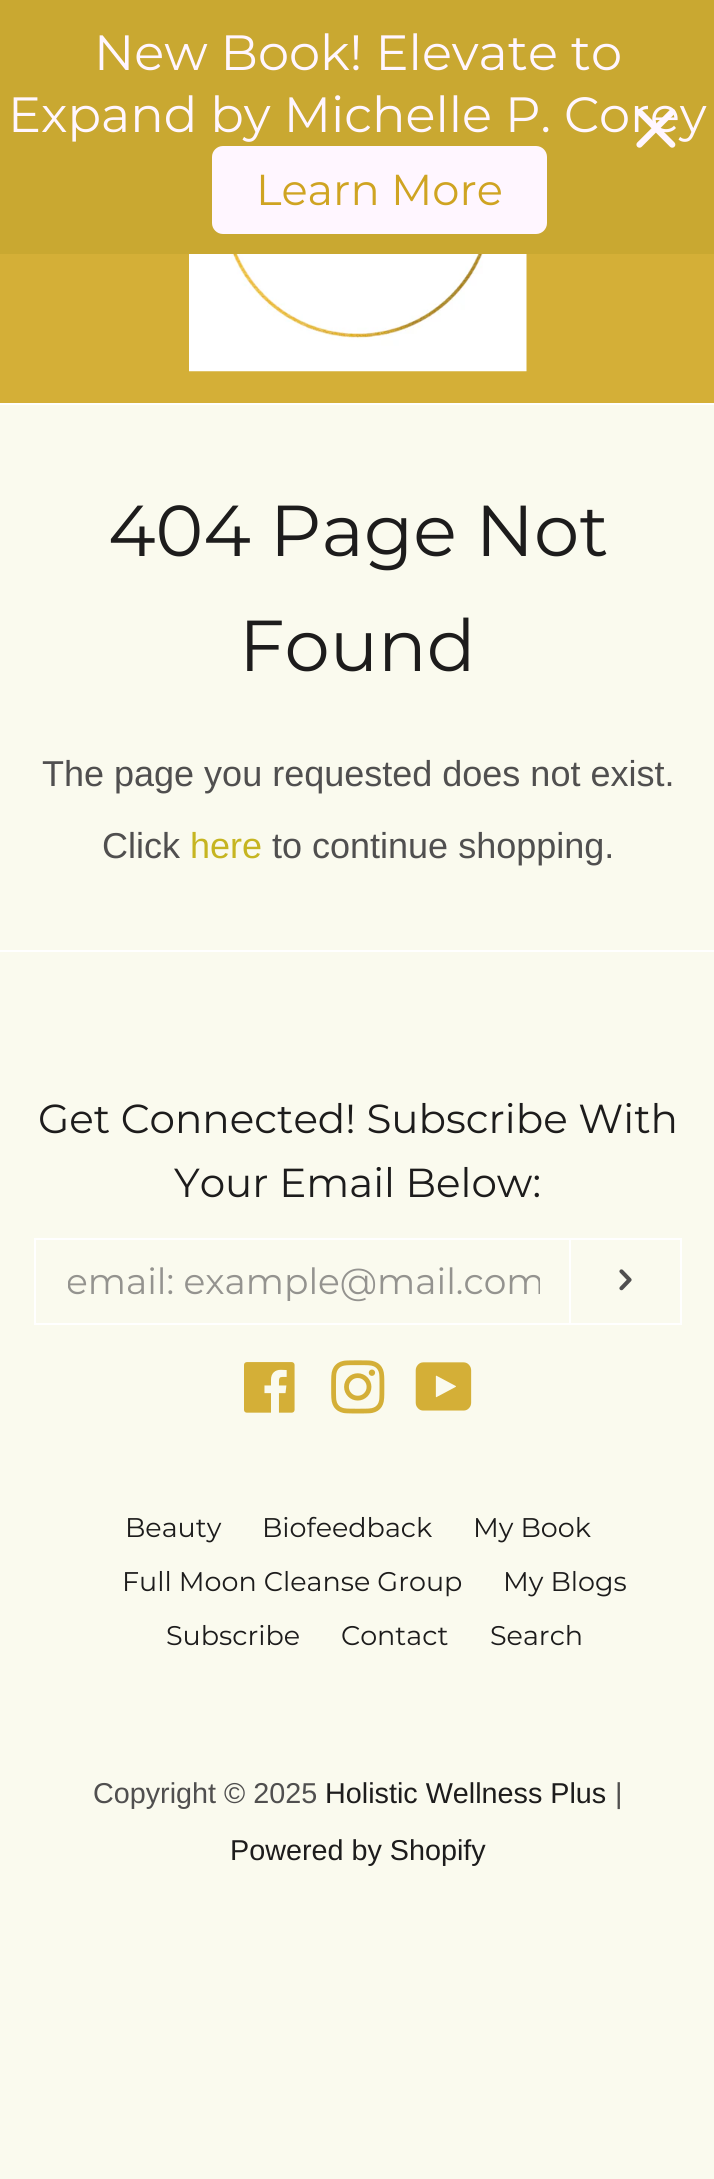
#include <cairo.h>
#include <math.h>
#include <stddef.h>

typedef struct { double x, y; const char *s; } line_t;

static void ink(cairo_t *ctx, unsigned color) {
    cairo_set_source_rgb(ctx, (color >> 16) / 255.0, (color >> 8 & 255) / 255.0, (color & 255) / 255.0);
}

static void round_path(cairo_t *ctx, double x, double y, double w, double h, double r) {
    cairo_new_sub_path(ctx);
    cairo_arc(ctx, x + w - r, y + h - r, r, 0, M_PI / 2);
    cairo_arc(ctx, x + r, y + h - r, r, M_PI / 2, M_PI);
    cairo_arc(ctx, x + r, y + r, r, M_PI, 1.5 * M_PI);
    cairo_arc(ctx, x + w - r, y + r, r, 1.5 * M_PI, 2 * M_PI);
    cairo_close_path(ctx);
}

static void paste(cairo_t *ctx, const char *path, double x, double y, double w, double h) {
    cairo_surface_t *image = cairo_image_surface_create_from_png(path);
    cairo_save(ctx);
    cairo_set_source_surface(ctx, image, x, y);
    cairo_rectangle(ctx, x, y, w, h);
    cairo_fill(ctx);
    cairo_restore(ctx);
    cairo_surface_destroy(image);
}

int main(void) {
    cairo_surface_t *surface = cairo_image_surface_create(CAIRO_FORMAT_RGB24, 714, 2179);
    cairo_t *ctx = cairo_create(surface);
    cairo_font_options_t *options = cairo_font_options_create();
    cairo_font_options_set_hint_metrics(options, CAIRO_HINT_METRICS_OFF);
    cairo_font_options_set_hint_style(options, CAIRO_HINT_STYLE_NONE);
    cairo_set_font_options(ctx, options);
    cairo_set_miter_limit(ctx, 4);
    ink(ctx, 0xD4AF37);
    cairo_paint(ctx);
    ink(ctx, 0xC9A831);
    cairo_rectangle(ctx, 0, 0, 714, 254);
    cairo_fill(ctx);
    cairo_select_font_face(ctx, "Montserrat Thin", CAIRO_FONT_SLANT_NORMAL, CAIRO_FONT_WEIGHT_NORMAL);
    cairo_set_font_size(ctx, 49.5);
    ink(ctx, 0xFFF6FF);
    cairo_move_to(ctx, 94, 70);
    cairo_show_text(ctx, "New Book! Elevate to");
    cairo_move_to(ctx, 8, 132);
    cairo_show_text(ctx, "Expand by Michelle P. Corey");
    round_path(ctx, 212, 146, 335, 88, 11);
    cairo_fill(ctx);
    cairo_set_font_size(ctx, 43.25);
    ink(ctx, 0xCFA422);
    cairo_move_to(ctx, 256, 205);
    cairo_show_text(ctx, "Learn More");
    paste(ctx, "media/1.png", 636, 108, 40, 40);
    ink(ctx, 0xFFFFFF);
    cairo_rectangle(ctx, 0, 403, 714, 2);
    cairo_fill(ctx);
    paste(ctx, "media/2.png", 189, 254, 338, 118);
    ink(ctx, 0xFAFAEE);
    cairo_rectangle(ctx, 0, 405, 714, 1774);
    cairo_fill(ctx);
    cairo_set_font_size(ctx, 72);
    ink(ctx, 0x1D1C1C);
    cairo_move_to(ctx, 108, 556);
    cairo_show_text(ctx, "404 Page Not");
    cairo_move_to(ctx, 239, 671);
    cairo_show_text(ctx, "Found");
    cairo_select_font_face(ctx, "Liberation Sans", CAIRO_FONT_SLANT_NORMAL, CAIRO_FONT_WEIGHT_NORMAL);
    cairo_set_font_size(ctx, 36);
    ink(ctx, 0x504F4F);
    cairo_move_to(ctx, 42, 786);
    cairo_show_text(ctx, "The page you requested does not exist.");
    cairo_move_to(ctx, 102, 858);
    cairo_show_text(ctx, "Click");
    ink(ctx, 0xC6B521);
    cairo_move_to(ctx, 190, 858);
    cairo_show_text(ctx, "here");
    ink(ctx, 0x504F4F);
    cairo_move_to(ctx, 272, 858);
    cairo_show_text(ctx, "to continue shopping.");
    ink(ctx, 0xFFFFFF);
    cairo_rectangle(ctx, 0, 950, 714, 2);
    cairo_fill(ctx);
    cairo_select_font_face(ctx, "Montserrat Thin", CAIRO_FONT_SLANT_NORMAL, CAIRO_FONT_WEIGHT_NORMAL);
    cairo_set_font_size(ctx, 40.5);
    ink(ctx, 0x1D1C1C);
    cairo_move_to(ctx, 38, 1133);
    cairo_show_text(ctx, "Get Connected! Subscribe With");
    cairo_move_to(ctx, 174, 1197);
    cairo_show_text(ctx, "Your Email Below:");
    cairo_rectangle(ctx, 35, 1239, 646, 85);
    ink(ctx, 0xFFFFFF);
    cairo_stroke(ctx);
    cairo_rectangle(ctx, 569, 1240, 2, 83);
    cairo_fill(ctx);
    cairo_save(ctx);
    cairo_rectangle(ctx, 68, 1260, 472, 43);
    cairo_clip(ctx);
    cairo_set_font_size(ctx, 36);
    ink(ctx, 0x94938F);
    cairo_move_to(ctx, 66, 1294);
    cairo_show_text(ctx, "email: example@mail.com");
    cairo_restore(ctx);
    paste(ctx, "media/3.png", 619, 1269, 13, 22);
    paste(ctx, "media/4.png", 244, 1362, 51, 51);
    paste(ctx, "media/5.png", 331, 1360, 54, 54);
    paste(ctx, "media/6.png", 415, 1362, 57, 49);
    cairo_set_font_size(ctx, 27);
    ink(ctx, 0x1D1C1C);
    {
        static const line_t items[] = {
            {125, 1537, "Beauty"},
            {262, 1537, "Biofeedback"},
            {473, 1537, "My Book"},
            {122, 1591, "Full Moon Cleanse Group"},
            {503, 1591, "My Blogs"},
            {166, 1645, "Subscribe"},
            {341, 1645, "Contact"},
            {490, 1645, "Search"},
        };
        for (size_t i = 0; i < sizeof items / sizeof *items; i++) {
            cairo_move_to(ctx, items[i].x, items[i].y);
            cairo_show_text(ctx, items[i].s);
        }
    }
    cairo_select_font_face(ctx, "Liberation Sans", CAIRO_FONT_SLANT_NORMAL, CAIRO_FONT_WEIGHT_NORMAL);
    cairo_set_font_size(ctx, 28.75);
    ink(ctx, 0x504F4F);
    cairo_move_to(ctx, 93, 1803);
    cairo_show_text(ctx, "Copyright © 2025");
    ink(ctx, 0x1D1C1C);
    cairo_move_to(ctx, 325, 1803);
    cairo_show_text(ctx, "Holistic Wellness Plus");
    ink(ctx, 0x504F4F);
    cairo_move_to(ctx, 615, 1803);
    cairo_show_text(ctx, "|");
    ink(ctx, 0x1D1C1C);
    cairo_move_to(ctx, 230, 1860);
    cairo_show_text(ctx, "Powered by Shopify");
    cairo_surface_write_to_png(surface, "image.png");
    cairo_font_options_destroy(options);
    cairo_destroy(ctx);
    cairo_surface_destroy(surface);
    return 0;
}
